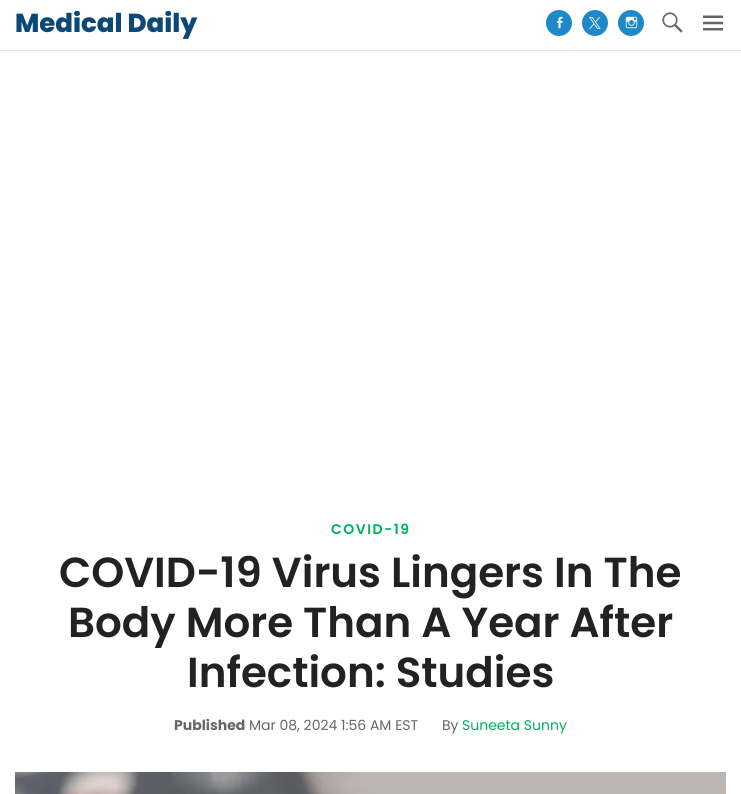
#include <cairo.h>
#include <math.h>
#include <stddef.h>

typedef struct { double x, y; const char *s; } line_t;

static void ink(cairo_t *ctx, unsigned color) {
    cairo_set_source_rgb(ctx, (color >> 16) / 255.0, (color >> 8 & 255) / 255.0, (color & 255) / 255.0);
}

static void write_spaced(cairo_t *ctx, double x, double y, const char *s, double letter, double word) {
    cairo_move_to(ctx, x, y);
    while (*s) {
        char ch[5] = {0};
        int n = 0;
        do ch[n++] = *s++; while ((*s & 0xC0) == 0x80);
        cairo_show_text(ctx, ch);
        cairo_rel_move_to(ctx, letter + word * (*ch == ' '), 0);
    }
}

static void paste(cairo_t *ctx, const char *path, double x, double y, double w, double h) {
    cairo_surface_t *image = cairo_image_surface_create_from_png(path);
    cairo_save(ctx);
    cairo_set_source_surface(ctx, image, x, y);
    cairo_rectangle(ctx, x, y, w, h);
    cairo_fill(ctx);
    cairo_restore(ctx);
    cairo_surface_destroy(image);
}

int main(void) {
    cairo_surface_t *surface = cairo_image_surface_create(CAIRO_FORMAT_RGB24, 741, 794);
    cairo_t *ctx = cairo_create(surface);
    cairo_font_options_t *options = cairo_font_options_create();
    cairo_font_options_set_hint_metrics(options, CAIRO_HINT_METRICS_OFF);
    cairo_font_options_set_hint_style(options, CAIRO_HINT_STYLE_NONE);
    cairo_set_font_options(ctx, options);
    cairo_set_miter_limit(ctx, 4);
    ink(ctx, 0xFFFFFF);
    cairo_paint(ctx);
    ink(ctx, 0xE5E5E5);
    cairo_rectangle(ctx, 0, 50, 741, 1);
    cairo_fill(ctx);
    cairo_select_font_face(ctx, "Poppins ExtraBold", CAIRO_FONT_SLANT_NORMAL, CAIRO_FONT_WEIGHT_NORMAL);
    cairo_set_font_size(ctx, 26);
    ink(ctx, 0x0B4777);
    cairo_move_to(ctx, 15, 32);
    cairo_show_text(ctx, "Medical Daily");
    ink(ctx, 0x1F88C9);
    cairo_new_path(ctx);
    cairo_arc(ctx, 559, 23, 13, 0, 2 * M_PI);
    cairo_fill(ctx);
    paste(ctx, "media/1.png", 557, 16, 6, 13);
    cairo_arc(ctx, 595, 23, 13, 0, 2 * M_PI);
    cairo_fill(ctx);
    paste(ctx, "media/2.png", 589, 17, 12, 12);
    cairo_arc(ctx, 631, 23, 13, 0, 2 * M_PI);
    cairo_fill(ctx);
    paste(ctx, "media/3.png", 625, 16, 13, 13);
    paste(ctx, "media/4.png", 662, 12, 21, 21);
    paste(ctx, "media/5.png", 703, 15, 20, 16);
    cairo_select_font_face(ctx, "Poppins SemiBold", CAIRO_FONT_SLANT_NORMAL, CAIRO_FONT_WEIGHT_NORMAL);
    cairo_set_font_size(ctx, 14);
    ink(ctx, 0x00B159);
    write_spaced(ctx, 331, 534, "COVID-19", 1.5, 0);
    cairo_set_font_size(ctx, 42);
    ink(ctx, 0x222222);
    {
        static const line_t items[] = {
            {59, 587, "COVID-19 Virus Lingers In The"},
            {68, 637, "Body More Than A Year After"},
            {187, 687, "Infection: Studies"},
        };
        for (size_t i = 0; i < sizeof items / sizeof *items; i++) {
            cairo_move_to(ctx, items[i].x, items[i].y);
            cairo_show_text(ctx, items[i].s);
        }
    }
    cairo_select_font_face(ctx, "Poppins", CAIRO_FONT_SLANT_NORMAL, CAIRO_FONT_WEIGHT_BOLD);
    cairo_set_font_size(ctx, 14);
    ink(ctx, 0x666666);
    cairo_move_to(ctx, 174, 730);
    cairo_show_text(ctx, "Published");
    cairo_select_font_face(ctx, "Poppins", CAIRO_FONT_SLANT_NORMAL, CAIRO_FONT_WEIGHT_NORMAL);
    cairo_move_to(ctx, 249, 730);
    cairo_show_text(ctx, "Mar 08, 2024 1:56 AM EST");
    cairo_move_to(ctx, 442, 730);
    cairo_show_text(ctx, "By");
    ink(ctx, 0x00B159);
    cairo_move_to(ctx, 462, 730);
    cairo_show_text(ctx, "Suneeta Sunny");
    paste(ctx, "media/6.png", 15, 772, 711, 22);
    cairo_surface_write_to_png(surface, "image.png");
    cairo_font_options_destroy(options);
    cairo_destroy(ctx);
    cairo_surface_destroy(surface);
    return 0;
}
